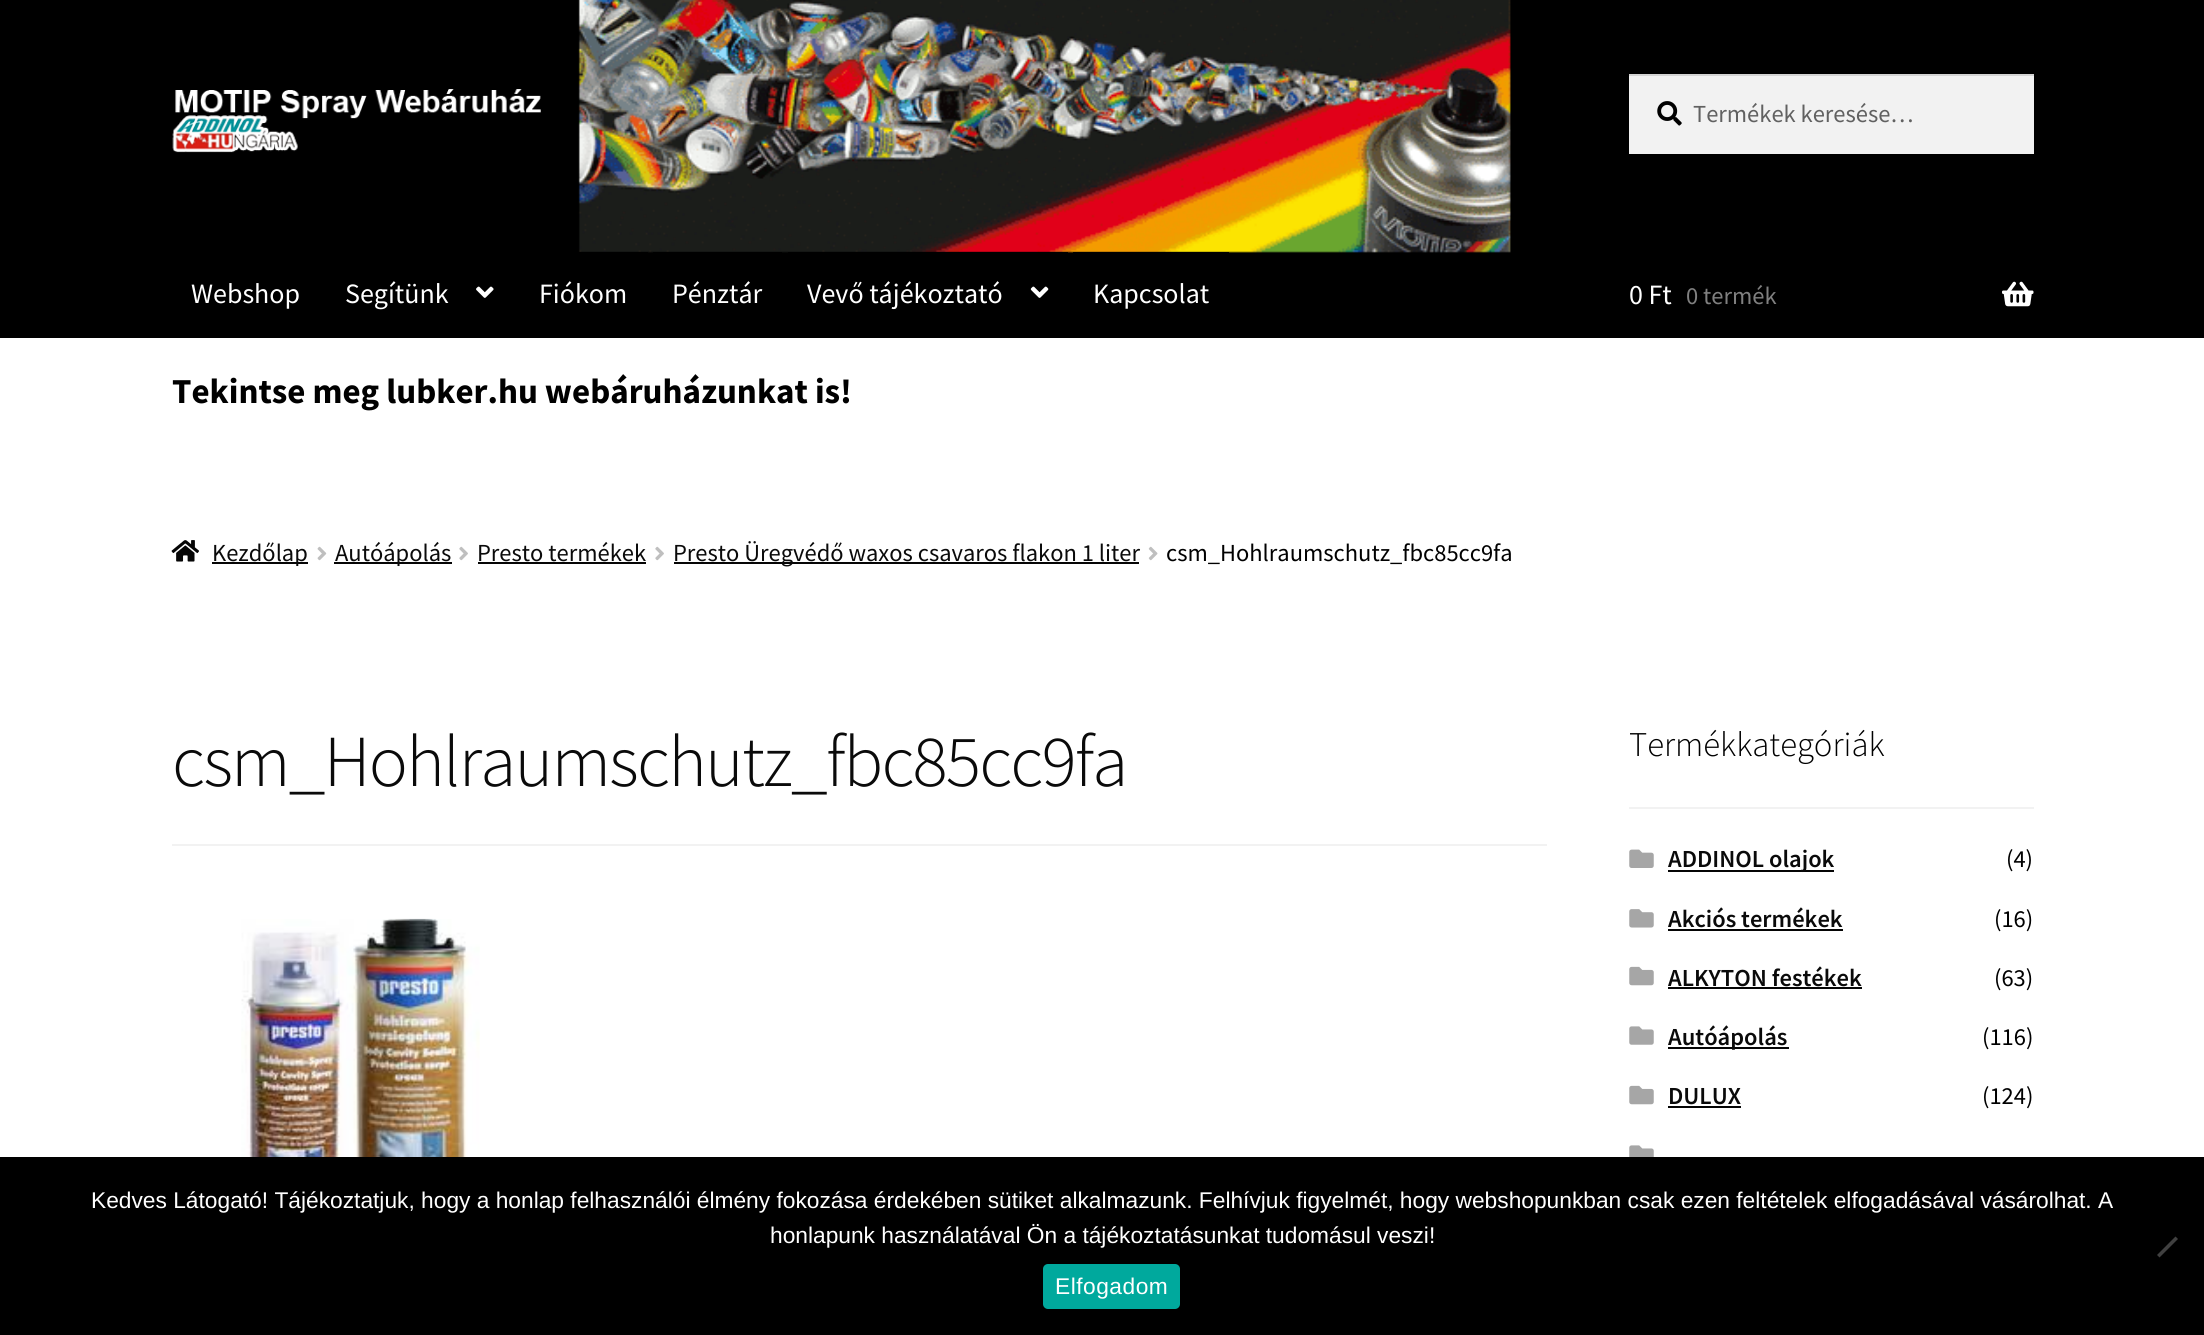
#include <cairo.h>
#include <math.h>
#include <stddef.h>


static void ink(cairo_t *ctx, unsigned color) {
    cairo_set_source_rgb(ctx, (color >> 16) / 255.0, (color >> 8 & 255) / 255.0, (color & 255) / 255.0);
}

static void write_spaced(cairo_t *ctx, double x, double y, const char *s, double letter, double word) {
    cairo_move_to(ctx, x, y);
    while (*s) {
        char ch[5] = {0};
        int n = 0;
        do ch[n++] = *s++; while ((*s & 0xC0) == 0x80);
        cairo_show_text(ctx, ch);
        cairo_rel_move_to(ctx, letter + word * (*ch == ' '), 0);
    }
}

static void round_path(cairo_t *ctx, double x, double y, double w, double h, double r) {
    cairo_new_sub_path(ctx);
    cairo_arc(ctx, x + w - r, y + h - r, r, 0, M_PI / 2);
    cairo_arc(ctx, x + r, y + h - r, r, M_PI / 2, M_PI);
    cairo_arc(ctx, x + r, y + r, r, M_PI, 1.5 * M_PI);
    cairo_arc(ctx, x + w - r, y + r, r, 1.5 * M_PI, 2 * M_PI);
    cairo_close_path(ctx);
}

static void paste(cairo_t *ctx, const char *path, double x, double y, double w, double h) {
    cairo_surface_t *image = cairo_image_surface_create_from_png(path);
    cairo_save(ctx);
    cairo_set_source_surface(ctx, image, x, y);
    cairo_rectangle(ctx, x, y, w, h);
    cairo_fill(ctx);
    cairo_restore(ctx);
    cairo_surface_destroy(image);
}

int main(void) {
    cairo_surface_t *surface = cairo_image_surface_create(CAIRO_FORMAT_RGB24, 2204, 1335);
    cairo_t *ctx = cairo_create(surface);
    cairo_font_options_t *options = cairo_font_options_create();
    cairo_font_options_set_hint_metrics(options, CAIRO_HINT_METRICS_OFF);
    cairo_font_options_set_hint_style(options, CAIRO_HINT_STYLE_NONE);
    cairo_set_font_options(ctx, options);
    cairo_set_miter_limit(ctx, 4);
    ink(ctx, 0xFFFFFF);
    cairo_paint(ctx);
    ink(ctx, 0x000000);
    cairo_rectangle(ctx, 0, 0, 2204, 338);
    cairo_fill(ctx);
    paste(ctx, "media/1.png", 578, 0, 933, 253);
    paste(ctx, "media/2.png", 172, 89, 369, 64);
    ink(ctx, 0xF2F2F2);
    cairo_rectangle(ctx, 1629, 76, 405, 78);
    cairo_fill(ctx);
    paste(ctx, "media/3.png", 1657, 101, 25, 25);
    ink(ctx, 0xD4D4D4);
    cairo_rectangle(ctx, 1629, 74, 405, 2);
    cairo_fill(ctx);
    cairo_select_font_face(ctx, "Source Sans Pro", CAIRO_FONT_SLANT_NORMAL, CAIRO_FONT_WEIGHT_NORMAL);
    cairo_set_font_size(ctx, 24.5);
    ink(ctx, 0x616161);
    cairo_move_to(ctx, 1693, 122);
    cairo_show_text(ctx, "Termékek keresése…");
    cairo_set_font_size(ctx, 28);
    ink(ctx, 0xFFFFFF);
    cairo_move_to(ctx, 191, 303);
    cairo_show_text(ctx, "Webshop");
    cairo_move_to(ctx, 345, 303);
    cairo_show_text(ctx, "Segítünk");
    paste(ctx, "media/4.png", 476, 286, 18, 12);
    ink(ctx, 0x000000);
    cairo_rectangle(ctx, 579, 252, 69, 1);
    cairo_fill(ctx);
    ink(ctx, 0xFFFFFF);
    cairo_move_to(ctx, 539, 303);
    cairo_show_text(ctx, "Fiókom");
    ink(ctx, 0x000000);
    cairo_rectangle(ctx, 653, 252, 129, 1);
    cairo_fill(ctx);
    ink(ctx, 0xFFFFFF);
    cairo_move_to(ctx, 672, 303);
    cairo_show_text(ctx, "Pénztár");
    ink(ctx, 0x000000);
    cairo_rectangle(ctx, 788, 252, 280, 1);
    cairo_fill(ctx);
    ink(ctx, 0xFFFFFF);
    cairo_move_to(ctx, 807, 303);
    cairo_show_text(ctx, "Vevő tájékoztató");
    paste(ctx, "media/5.png", 1030, 286, 19, 12);
    ink(ctx, 0x000000);
    cairo_rectangle(ctx, 1073, 252, 156, 1);
    cairo_fill(ctx);
    ink(ctx, 0xFFFFFF);
    cairo_move_to(ctx, 1093, 303);
    cairo_show_text(ctx, "Kapcsolat");
    cairo_move_to(ctx, 1629, 304);
    cairo_show_text(ctx, "0 Ft");
    cairo_set_font_size(ctx, 24.5);
    ink(ctx, 0x808080);
    cairo_move_to(ctx, 1686, 304);
    cairo_show_text(ctx, "0 termék");
    paste(ctx, "media/6.png", 2002, 281, 32, 26);
    cairo_select_font_face(ctx, "Source Sans Pro", CAIRO_FONT_SLANT_NORMAL, CAIRO_FONT_WEIGHT_BOLD);
    cairo_set_font_size(ctx, 35);
    ink(ctx, 0x000000);
    cairo_move_to(ctx, 172, 403);
    cairo_show_text(ctx, "Tekintse meg lubker.hu webáruházunkat is!");
    paste(ctx, "media/7.png", 171, 540, 28, 22);
    ink(ctx, 0x050505);
    cairo_rectangle(ctx, 212, 562, 96, 2);
    cairo_fill(ctx);
    cairo_select_font_face(ctx, "Source Sans Pro", CAIRO_FONT_SLANT_NORMAL, CAIRO_FONT_WEIGHT_NORMAL);
    cairo_set_font_size(ctx, 24.5);
    ink(ctx, 0x0A0A0A);
    cairo_move_to(ctx, 212, 561);
    cairo_show_text(ctx, "Kezdőlap");
    paste(ctx, "media/8.png", 317, 546, 10, 15);
    ink(ctx, 0x050505);
    cairo_rectangle(ctx, 334, 562, 118, 2);
    cairo_fill(ctx);
    ink(ctx, 0x0A0A0A);
    cairo_move_to(ctx, 335, 561);
    cairo_show_text(ctx, "Autóápolás");
    paste(ctx, "media/9.png", 459, 546, 9, 15);
    cairo_move_to(ctx, 477, 561);
    cairo_show_text(ctx, "Presto termékek");
    ink(ctx, 0x050505);
    cairo_rectangle(ctx, 478, 562, 168, 2);
    cairo_fill(ctx);
    paste(ctx, "media/9.png", 655, 546, 9, 15);
    cairo_rectangle(ctx, 674, 562, 465, 2);
    cairo_fill(ctx);
    ink(ctx, 0x0A0A0A);
    cairo_move_to(ctx, 673, 561);
    cairo_show_text(ctx, "Presto Üregvédő waxos csavaros flakon 1 liter");
    paste(ctx, "media/10.png", 1148, 546, 10, 15);
    ink(ctx, 0x000000);
    cairo_move_to(ctx, 1166, 561);
    cairo_show_text(ctx, "csm_Hohlraumschutz_fbc85cc9fa");
    ink(ctx, 0xF2F2F2);
    cairo_rectangle(ctx, 172, 844, 1375, 2);
    cairo_fill(ctx);
    cairo_select_font_face(ctx, "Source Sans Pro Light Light", CAIRO_FONT_SLANT_NORMAL, CAIRO_FONT_WEIGHT_NORMAL);
    cairo_set_font_size(ctx, 73.25);
    ink(ctx, 0x0A0A0A);
    write_spaced(ctx, 172, 786, "csm_Hohlraumschutz_fbc85cc9fa", -1.75, 0);
    paste(ctx, "media/11.png", 241, 918, 239, 239);
    ink(ctx, 0xF2F2F2);
    cairo_rectangle(ctx, 1629, 807, 405, 2);
    cairo_fill(ctx);
    cairo_set_font_size(ctx, 34.75);
    ink(ctx, 0x000000);
    cairo_move_to(ctx, 1629, 756);
    cairo_show_text(ctx, "Termékkategóriák");
    paste(ctx, "media/12.png", 1629, 849, 25, 19);
    ink(ctx, 0x050505);
    cairo_rectangle(ctx, 1668, 870, 166, 2);
    cairo_fill(ctx);
    cairo_select_font_face(ctx, "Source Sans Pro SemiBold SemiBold", CAIRO_FONT_SLANT_NORMAL, CAIRO_FONT_WEIGHT_NORMAL);
    cairo_set_font_size(ctx, 24.5);
    ink(ctx, 0x0A0A0A);
    cairo_move_to(ctx, 1668, 867);
    cairo_show_text(ctx, "ADDINOL olajok");
    cairo_select_font_face(ctx, "Source Sans Pro", CAIRO_FONT_SLANT_NORMAL, CAIRO_FONT_WEIGHT_NORMAL);
    ink(ctx, 0x000000);
    cairo_move_to(ctx, 2006, 867);
    cairo_show_text(ctx, "(4)");
    paste(ctx, "media/13.png", 1629, 909, 25, 19);
    cairo_select_font_face(ctx, "Source Sans Pro SemiBold SemiBold", CAIRO_FONT_SLANT_NORMAL, CAIRO_FONT_WEIGHT_NORMAL);
    ink(ctx, 0x0A0A0A);
    cairo_move_to(ctx, 1668, 927);
    cairo_show_text(ctx, "Akciós termékek");
    ink(ctx, 0x050505);
    cairo_rectangle(ctx, 1668, 929, 175, 2);
    cairo_fill(ctx);
    cairo_select_font_face(ctx, "Source Sans Pro", CAIRO_FONT_SLANT_NORMAL, CAIRO_FONT_WEIGHT_NORMAL);
    ink(ctx, 0x000000);
    cairo_move_to(ctx, 1994, 927);
    cairo_show_text(ctx, "(16)");
    paste(ctx, "media/14.png", 1629, 966, 25, 20);
    cairo_select_font_face(ctx, "Source Sans Pro SemiBold SemiBold", CAIRO_FONT_SLANT_NORMAL, CAIRO_FONT_WEIGHT_NORMAL);
    ink(ctx, 0x0A0A0A);
    cairo_move_to(ctx, 1668, 986);
    cairo_show_text(ctx, "ALKYTON festékek");
    ink(ctx, 0x050505);
    cairo_rectangle(ctx, 1668, 987, 194, 2);
    cairo_fill(ctx);
    cairo_select_font_face(ctx, "Source Sans Pro", CAIRO_FONT_SLANT_NORMAL, CAIRO_FONT_WEIGHT_NORMAL);
    ink(ctx, 0x000000);
    cairo_move_to(ctx, 1994, 986);
    cairo_show_text(ctx, "(63)");
    paste(ctx, "media/15.png", 1629, 1026, 25, 19);
    ink(ctx, 0x050505);
    cairo_rectangle(ctx, 1668, 1047, 121, 2);
    cairo_fill(ctx);
    cairo_select_font_face(ctx, "Source Sans Pro SemiBold SemiBold", CAIRO_FONT_SLANT_NORMAL, CAIRO_FONT_WEIGHT_NORMAL);
    ink(ctx, 0x0A0A0A);
    cairo_move_to(ctx, 1668, 1045);
    cairo_show_text(ctx, "Autóápolás");
    cairo_select_font_face(ctx, "Source Sans Pro", CAIRO_FONT_SLANT_NORMAL, CAIRO_FONT_WEIGHT_NORMAL);
    ink(ctx, 0x000000);
    cairo_move_to(ctx, 1982, 1045);
    cairo_show_text(ctx, "(116)");
    paste(ctx, "media/14.png", 1629, 1085, 25, 20);
    cairo_select_font_face(ctx, "Source Sans Pro SemiBold SemiBold", CAIRO_FONT_SLANT_NORMAL, CAIRO_FONT_WEIGHT_NORMAL);
    ink(ctx, 0x0A0A0A);
    cairo_move_to(ctx, 1668, 1104);
    cairo_show_text(ctx, "DULUX");
    ink(ctx, 0x050505);
    cairo_rectangle(ctx, 1668, 1106, 73, 2);
    cairo_fill(ctx);
    cairo_select_font_face(ctx, "Source Sans Pro", CAIRO_FONT_SLANT_NORMAL, CAIRO_FONT_WEIGHT_NORMAL);
    ink(ctx, 0x000000);
    cairo_move_to(ctx, 1982, 1104);
    cairo_show_text(ctx, "(124)");
    paste(ctx, "media/16.png", 1629, 1145, 25, 12);
    cairo_rectangle(ctx, 0, 1157, 2204, 178);
    cairo_fill(ctx);
    cairo_select_font_face(ctx, "Liberation Sans", CAIRO_FONT_SLANT_NORMAL, CAIRO_FONT_WEIGHT_NORMAL);
    cairo_set_font_size(ctx, 22.75);
    ink(ctx, 0xFFFFFF);
    cairo_move_to(ctx, 91, 1208);
    cairo_show_text(ctx, "Kedves Látogató! Tájékoztatjuk, hogy a honlap felhasználói élmény fokozása érdekében sütiket alkalmazunk. Felhívjuk figyelmét, hogy webshopunkban csak ezen feltételek elfogadásával vásárolhat. A");
    cairo_move_to(ctx, 770, 1243);
    cairo_show_text(ctx, "honlapunk használatával Ön a tájékoztatásunkat tudomásul veszi!");
    ink(ctx, 0x404040);
    cairo_new_path(ctx);
    cairo_move_to(ctx, 2175.5, 1236.5);
    cairo_line_to(ctx, 2178, 1239);
    cairo_line_to(ctx, 2159.5, 1257.5);
    cairo_line_to(ctx, 2157, 1255);
    cairo_close_path(ctx);
    cairo_fill(ctx);
    ink(ctx, 0x00A99D);
    round_path(ctx, 1043, 1264, 137, 45, 5);
    cairo_fill(ctx);
    ink(ctx, 0xFFFFFF);
    write_spaced(ctx, 1055, 1294, "Elfogadom", 0.5, 0);
    cairo_surface_write_to_png(surface, "image.png");
    cairo_font_options_destroy(options);
    cairo_destroy(ctx);
    cairo_surface_destroy(surface);
    return 0;
}
